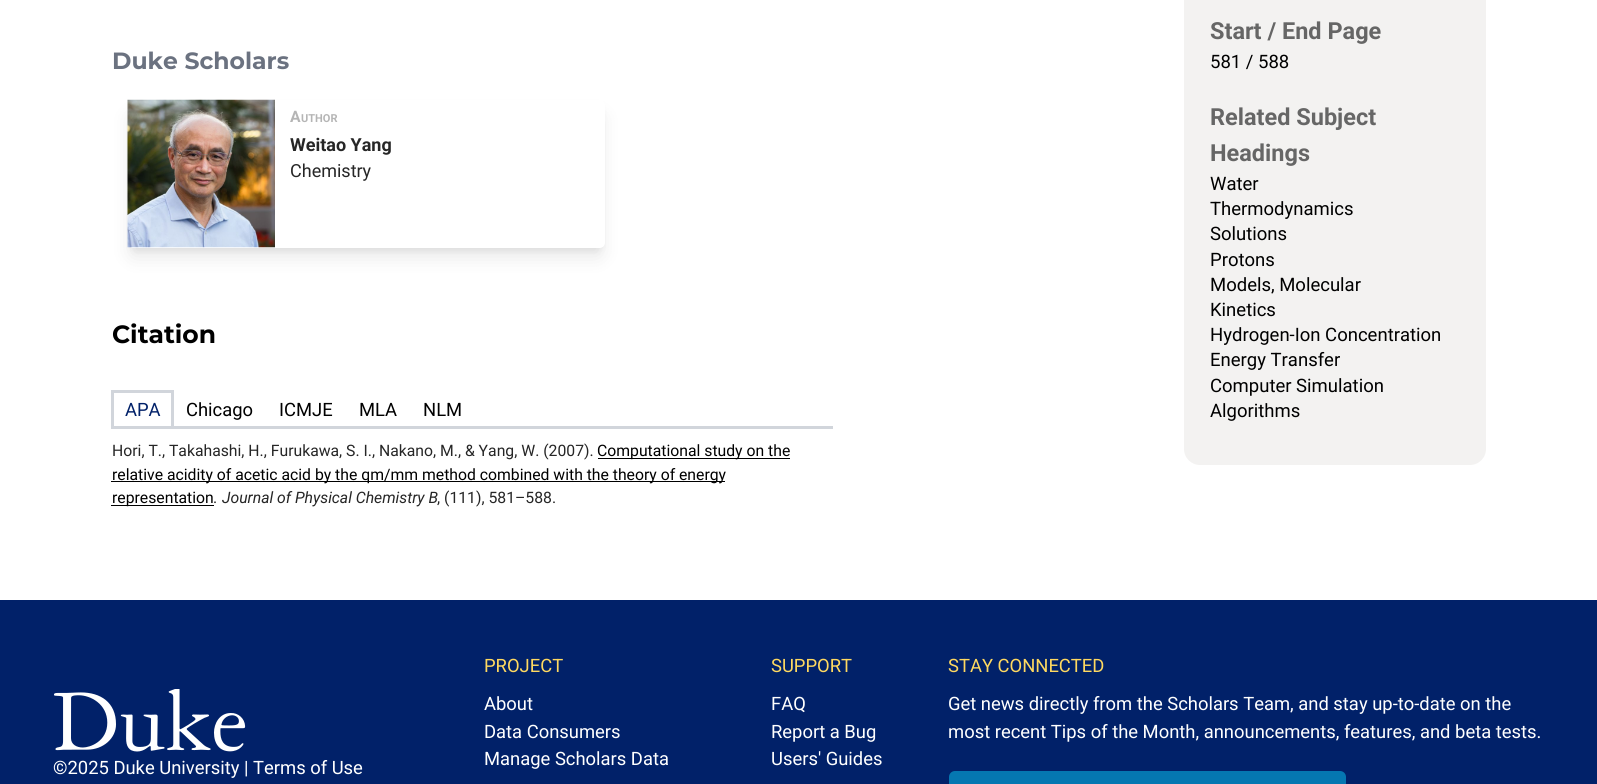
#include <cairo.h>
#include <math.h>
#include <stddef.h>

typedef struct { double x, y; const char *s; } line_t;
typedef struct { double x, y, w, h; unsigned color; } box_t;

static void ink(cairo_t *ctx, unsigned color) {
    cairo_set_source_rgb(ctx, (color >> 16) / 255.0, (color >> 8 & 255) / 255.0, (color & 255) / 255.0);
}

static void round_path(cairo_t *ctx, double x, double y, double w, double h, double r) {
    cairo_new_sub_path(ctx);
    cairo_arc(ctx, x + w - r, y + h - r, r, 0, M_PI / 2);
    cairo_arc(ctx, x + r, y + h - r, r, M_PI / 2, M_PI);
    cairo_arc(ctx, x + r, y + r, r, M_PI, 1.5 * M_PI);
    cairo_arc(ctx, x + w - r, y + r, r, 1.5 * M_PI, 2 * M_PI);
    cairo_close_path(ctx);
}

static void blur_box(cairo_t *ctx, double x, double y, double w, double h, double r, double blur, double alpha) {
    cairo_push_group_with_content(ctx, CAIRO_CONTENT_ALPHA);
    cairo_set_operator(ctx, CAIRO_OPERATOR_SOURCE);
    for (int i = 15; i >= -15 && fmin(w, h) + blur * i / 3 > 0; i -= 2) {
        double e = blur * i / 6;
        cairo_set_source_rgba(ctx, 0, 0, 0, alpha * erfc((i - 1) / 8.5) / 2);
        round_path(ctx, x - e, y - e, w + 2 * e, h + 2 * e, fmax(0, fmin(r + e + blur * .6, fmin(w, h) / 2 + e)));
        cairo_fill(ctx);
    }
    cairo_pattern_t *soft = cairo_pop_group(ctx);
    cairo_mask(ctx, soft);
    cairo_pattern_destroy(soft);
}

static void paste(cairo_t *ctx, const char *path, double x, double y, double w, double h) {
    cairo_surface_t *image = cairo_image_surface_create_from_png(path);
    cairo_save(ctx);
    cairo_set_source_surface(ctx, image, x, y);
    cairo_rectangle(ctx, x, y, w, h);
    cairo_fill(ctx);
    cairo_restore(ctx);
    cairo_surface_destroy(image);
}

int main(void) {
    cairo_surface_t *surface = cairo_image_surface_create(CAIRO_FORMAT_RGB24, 1597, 784);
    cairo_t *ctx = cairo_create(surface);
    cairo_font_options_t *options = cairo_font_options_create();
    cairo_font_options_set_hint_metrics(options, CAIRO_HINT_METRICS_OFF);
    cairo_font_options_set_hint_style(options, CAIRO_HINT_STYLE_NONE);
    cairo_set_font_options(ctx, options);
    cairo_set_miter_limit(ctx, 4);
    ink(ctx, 0xFFFFFF);
    cairo_paint(ctx);
    cairo_select_font_face(ctx, "Montserrat", CAIRO_FONT_SLANT_NORMAL, CAIRO_FONT_WEIGHT_BOLD);
    cairo_set_font_size(ctx, 23.5);
    ink(ctx, 0x6B7280);
    cairo_move_to(ctx, 112, 69);
    cairo_show_text(ctx, "Duke Scholars");
    cairo_save(ctx);
    cairo_set_fill_rule(ctx, CAIRO_FILL_RULE_EVEN_ODD);
    cairo_new_path(ctx);
    cairo_move_to(ctx, 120, 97);
    cairo_line_to(ctx, 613, 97);
    cairo_line_to(ctx, 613, 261);
    cairo_line_to(ctx, 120, 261);
    cairo_close_path(ctx);
    cairo_move_to(ctx, 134, 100);
    cairo_line_to(ctx, 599, 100);
    cairo_curve_to(ctx, 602.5, 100, 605, 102.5, 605, 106);
    cairo_line_to(ctx, 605, 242);
    cairo_curve_to(ctx, 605, 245.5, 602.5, 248, 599, 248);
    cairo_line_to(ctx, 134, 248);
    cairo_curve_to(ctx, 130.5, 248, 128, 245.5, 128, 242);
    cairo_line_to(ctx, 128, 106);
    cairo_curve_to(ctx, 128, 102.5, 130.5, 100, 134, 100);
    cairo_close_path(ctx);
    cairo_clip(ctx);
    ink(ctx, 0x000000);
    blur_box(ctx, 133, 110, 467, 138, 1, 4, 0.1);
    cairo_restore(ctx);
    cairo_save(ctx);
    cairo_set_fill_rule(ctx, CAIRO_FILL_RULE_EVEN_ODD);
    cairo_new_path(ctx);
    cairo_move_to(ctx, 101, 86);
    cairo_line_to(ctx, 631, 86);
    cairo_line_to(ctx, 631, 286);
    cairo_line_to(ctx, 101, 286);
    cairo_close_path(ctx);
    cairo_move_to(ctx, 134, 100);
    cairo_line_to(ctx, 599, 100);
    cairo_curve_to(ctx, 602.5, 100, 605, 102.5, 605, 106);
    cairo_line_to(ctx, 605, 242);
    cairo_curve_to(ctx, 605, 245.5, 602.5, 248, 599, 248);
    cairo_line_to(ctx, 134, 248);
    cairo_curve_to(ctx, 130.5, 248, 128, 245.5, 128, 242);
    cairo_line_to(ctx, 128, 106);
    cairo_curve_to(ctx, 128, 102.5, 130.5, 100, 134, 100);
    cairo_close_path(ctx);
    cairo_clip(ctx);
    ink(ctx, 0x000000);
    blur_box(ctx, 131, 116, 470, 140, 2.5, 9.5, 0.1);
    cairo_restore(ctx);
    paste(ctx, "media/1.png", 127, 99, 148, 149);
    cairo_select_font_face(ctx, "Roboto", CAIRO_FONT_SLANT_NORMAL, CAIRO_FONT_WEIGHT_BOLD);
    cairo_set_font_size(ctx, 15.75);
    ink(ctx, 0xB5B5B5);
    cairo_move_to(ctx, 290, 122);
    cairo_show_text(ctx, "A");
    cairo_set_font_size(ctx, 11);
    cairo_move_to(ctx, 301, 122);
    cairo_show_text(ctx, "UTHOR");
    cairo_set_font_size(ctx, 18);
    ink(ctx, 0x262626);
    cairo_move_to(ctx, 290, 151);
    cairo_show_text(ctx, "Weitao Yang");
    cairo_select_font_face(ctx, "Roboto", CAIRO_FONT_SLANT_NORMAL, CAIRO_FONT_WEIGHT_NORMAL);
    cairo_move_to(ctx, 290, 177);
    cairo_show_text(ctx, "Chemistry");
    cairo_select_font_face(ctx, "Montserrat", CAIRO_FONT_SLANT_NORMAL, CAIRO_FONT_WEIGHT_BOLD);
    cairo_set_font_size(ctx, 25);
    ink(ctx, 0x000000);
    cairo_move_to(ctx, 112, 343);
    cairo_show_text(ctx, "Citation");
    {
        static const box_t items[] = {
            {111, 390, 63, 3, 0xD1D5DB},
            {171, 390, 3, 39, 0xD1D5DB},
            {111, 390, 3, 39, 0xD1D5DB},
        };
        for (size_t i = 0; i < sizeof items / sizeof *items; i++) {
            ink(ctx, items[i].color);
            cairo_rectangle(ctx, items[i].x, items[i].y, items[i].w, items[i].h);
            cairo_fill(ctx);
        }
    }
    cairo_select_font_face(ctx, "Roboto", CAIRO_FONT_SLANT_NORMAL, CAIRO_FONT_WEIGHT_NORMAL);
    cairo_set_font_size(ctx, 18.4);
    ink(ctx, 0x012169);
    cairo_move_to(ctx, 125, 416);
    cairo_show_text(ctx, "APA");
    ink(ctx, 0x000000);
    {
        static const line_t items[] = {
            {186, 416, "Chicago"},
            {279, 416, "ICMJE"},
            {359, 416, "MLA"},
            {423, 416, "NLM"},
        };
        for (size_t i = 0; i < sizeof items / sizeof *items; i++) {
            cairo_move_to(ctx, items[i].x, items[i].y);
            cairo_show_text(ctx, items[i].s);
        }
    }
    ink(ctx, 0xD1D5DB);
    cairo_rectangle(ctx, 111, 426, 722, 3);
    cairo_fill(ctx);
    cairo_set_font_size(ctx, 15.75);
    ink(ctx, 0x262626);
    cairo_move_to(ctx, 112, 456);
    cairo_show_text(ctx, "Hori, T., Takahashi, H., Furukawa, S. I., Nakano, M., & Yang, W. (2007).");
    ink(ctx, 0x000000);
    cairo_rectangle(ctx, 598, 458, 192, 1);
    cairo_fill(ctx);
    cairo_move_to(ctx, 597, 456);
    cairo_show_text(ctx, "Computational study on the");
    cairo_rectangle(ctx, 111, 481, 614, 1);
    cairo_fill(ctx);
    cairo_move_to(ctx, 112, 480);
    cairo_show_text(ctx, "relative acidity of acetic acid by the qm/mm method combined with the theory of energy");
    cairo_rectangle(ctx, 111, 505, 103, 1);
    cairo_fill(ctx);
    cairo_move_to(ctx, 112, 503);
    cairo_show_text(ctx, "representation");
    ink(ctx, 0x262626);
    cairo_move_to(ctx, 213, 503);
    cairo_show_text(ctx, ".");
    cairo_select_font_face(ctx, "Roboto", CAIRO_FONT_SLANT_ITALIC, CAIRO_FONT_WEIGHT_NORMAL);
    cairo_move_to(ctx, 222, 503);
    cairo_show_text(ctx, "Journal of Physical Chemistry B");
    cairo_select_font_face(ctx, "Roboto", CAIRO_FONT_SLANT_NORMAL, CAIRO_FONT_WEIGHT_NORMAL);
    cairo_move_to(ctx, 437, 503);
    cairo_show_text(ctx, ", (111), 581–588.");
    ink(ctx, 0xF3F2F1);
    round_path(ctx, 1184, -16, 302, 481, 16);
    cairo_fill(ctx);
    cairo_select_font_face(ctx, "Roboto", CAIRO_FONT_SLANT_NORMAL, CAIRO_FONT_WEIGHT_BOLD);
    cairo_set_font_size(ctx, 23.5);
    ink(ctx, 0x666666);
    cairo_move_to(ctx, 1210, 39);
    cairo_show_text(ctx, "Start / End Page");
    cairo_select_font_face(ctx, "Roboto", CAIRO_FONT_SLANT_NORMAL, CAIRO_FONT_WEIGHT_NORMAL);
    cairo_set_font_size(ctx, 18.5);
    ink(ctx, 0x000000);
    cairo_move_to(ctx, 1210, 68);
    cairo_show_text(ctx, "581 / 588");
    cairo_select_font_face(ctx, "Roboto", CAIRO_FONT_SLANT_NORMAL, CAIRO_FONT_WEIGHT_BOLD);
    cairo_set_font_size(ctx, 23.5);
    ink(ctx, 0x666666);
    cairo_move_to(ctx, 1210, 125);
    cairo_show_text(ctx, "Related Subject");
    cairo_move_to(ctx, 1210, 161);
    cairo_show_text(ctx, "Headings");
    cairo_select_font_face(ctx, "Roboto", CAIRO_FONT_SLANT_NORMAL, CAIRO_FONT_WEIGHT_NORMAL);
    cairo_set_font_size(ctx, 18.5);
    ink(ctx, 0x000000);
    {
        static const line_t items[] = {
            {1210, 190, "Water"},
            {1210, 215, "Thermodynamics"},
            {1210, 240, "Solutions"},
            {1210, 266, "Protons"},
            {1210, 291, "Models, Molecular"},
            {1210, 316, "Kinetics"},
            {1210, 341, "Hydrogen-Ion Concentration"},
            {1210, 366, "Energy Transfer"},
            {1210, 392, "Computer Simulation"},
            {1210, 417, "Algorithms"},
        };
        for (size_t i = 0; i < sizeof items / sizeof *items; i++) {
            cairo_move_to(ctx, items[i].x, items[i].y);
            cairo_show_text(ctx, items[i].s);
        }
    }
    ink(ctx, 0x012169);
    cairo_rectangle(ctx, 0, 600, 1597, 184);
    cairo_fill(ctx);
    cairo_set_font_size(ctx, 18.4);
    ink(ctx, 0xFFD960);
    cairo_move_to(ctx, 484, 672);
    cairo_show_text(ctx, "PROJECT");
    ink(ctx, 0xFFFFFF);
    {
        static const line_t items[] = {
            {484, 710, "About"},
            {484, 738, "Data Consumers"},
            {484, 765, "Manage Scholars Data"},
        };
        for (size_t i = 0; i < sizeof items / sizeof *items; i++) {
            cairo_move_to(ctx, items[i].x, items[i].y);
            cairo_show_text(ctx, items[i].s);
        }
    }
    ink(ctx, 0xFFD960);
    cairo_move_to(ctx, 771, 672);
    cairo_show_text(ctx, "SUPPORT");
    ink(ctx, 0xFFFFFF);
    {
        static const line_t items[] = {
            {771, 710, "FAQ"},
            {771, 738, "Report a Bug"},
            {771, 765, "Users' Guides"},
        };
        for (size_t i = 0; i < sizeof items / sizeof *items; i++) {
            cairo_move_to(ctx, items[i].x, items[i].y);
            cairo_show_text(ctx, items[i].s);
        }
    }
    ink(ctx, 0xFFD960);
    cairo_move_to(ctx, 948, 672);
    cairo_show_text(ctx, "STAY CONNECTED");
    ink(ctx, 0xFFFFFF);
    cairo_move_to(ctx, 948, 710);
    cairo_show_text(ctx, "Get news directly from the Scholars Team, and stay up-to-date on the");
    cairo_move_to(ctx, 948, 738);
    cairo_show_text(ctx, "most recent Tips of the Month, announcements, features, and beta tests.");
    ink(ctx, 0x0577B1);
    round_path(ctx, 949, 771, 397, 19, 6);
    cairo_fill(ctx);
    paste(ctx, "media/2.png", 54, 689, 192, 63);
    ink(ctx, 0xFFFFFF);
    cairo_move_to(ctx, 53, 774);
    cairo_show_text(ctx, "©2025 Duke University | Terms of Use");
    cairo_surface_write_to_png(surface, "image.png");
    cairo_font_options_destroy(options);
    cairo_destroy(ctx);
    cairo_surface_destroy(surface);
    return 0;
}
